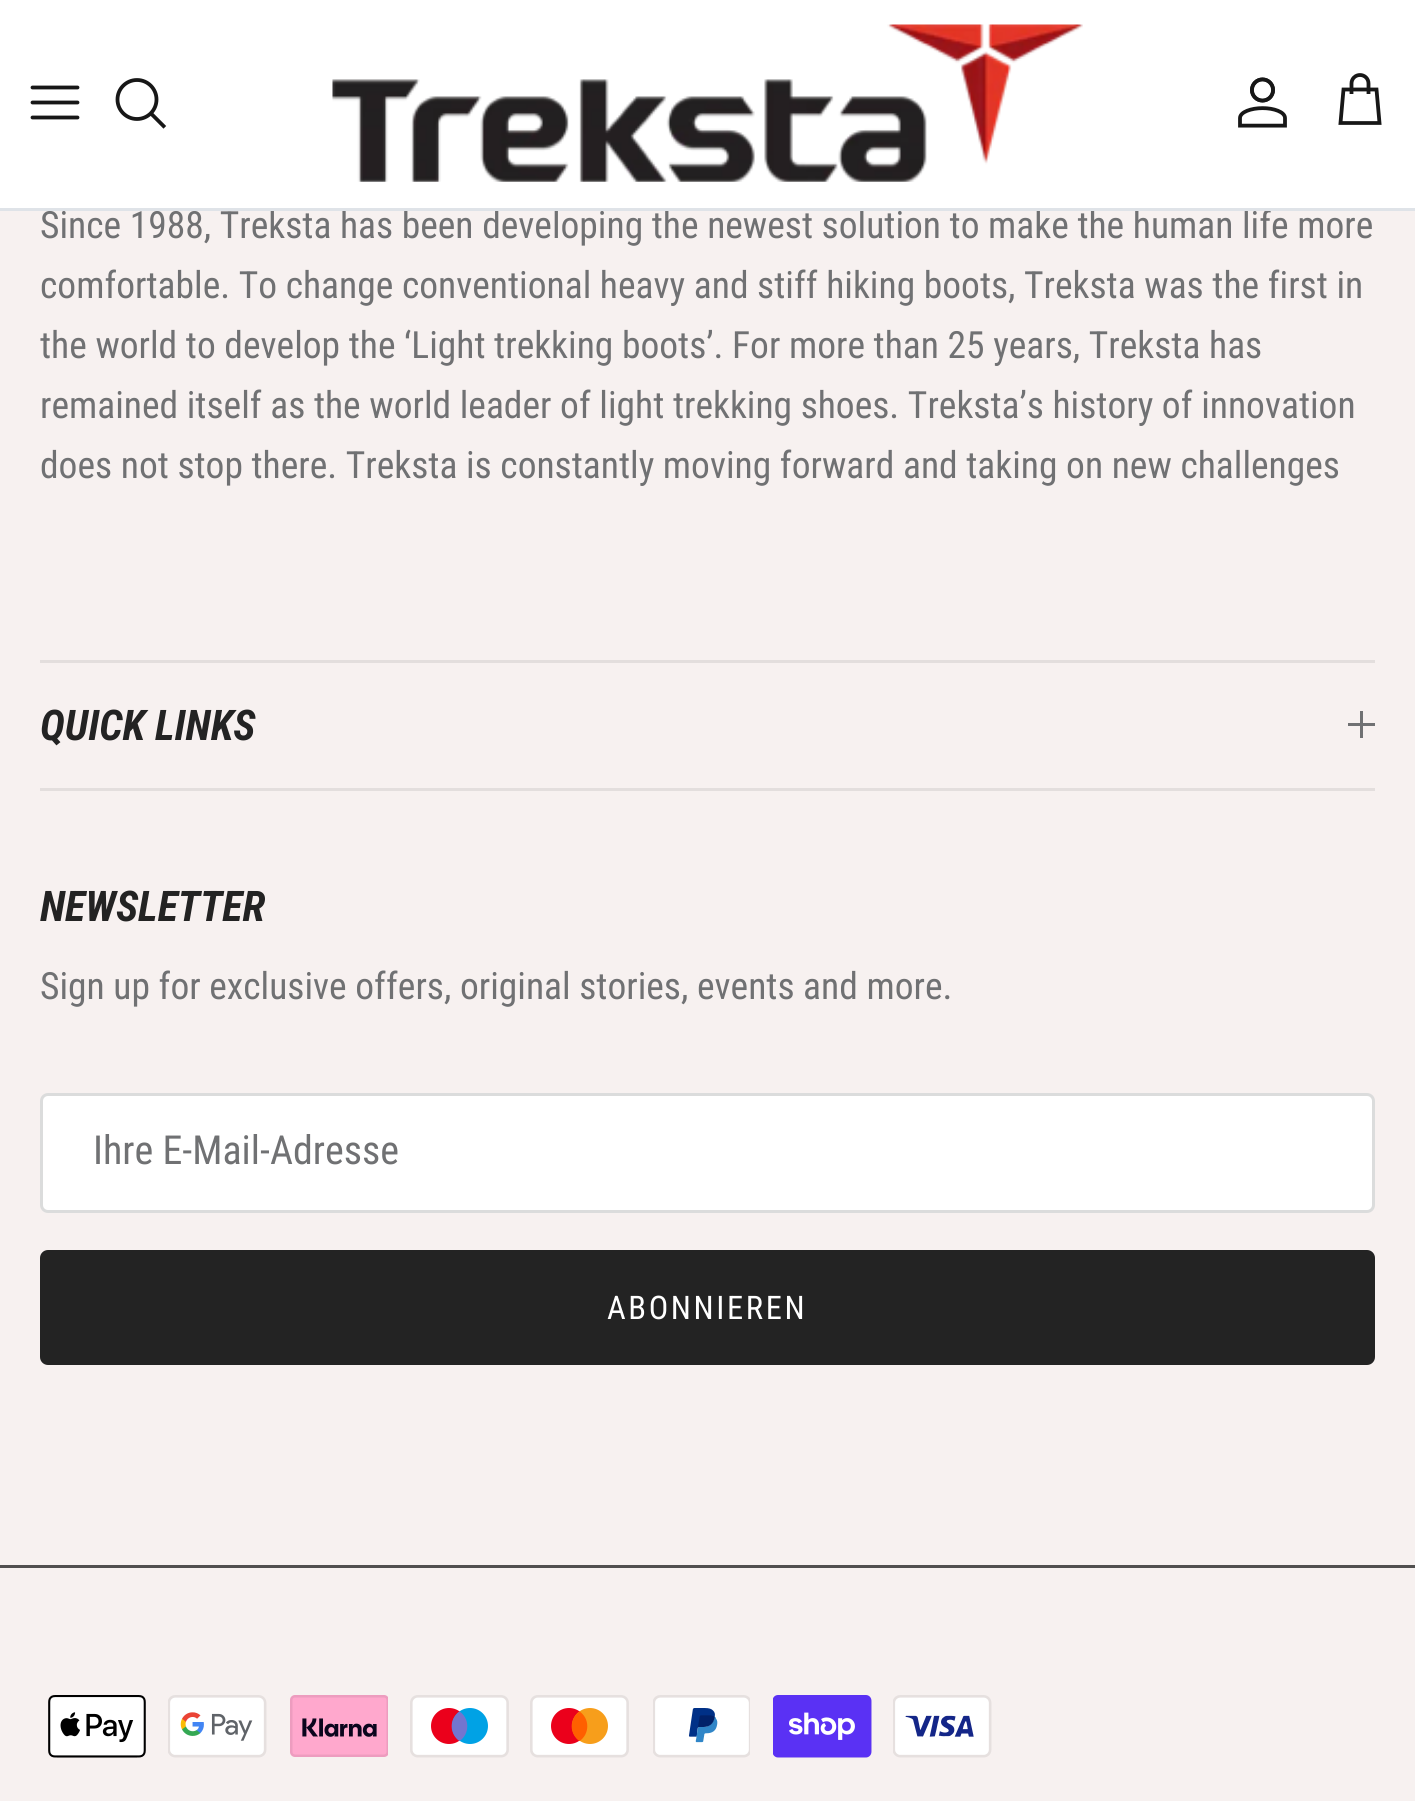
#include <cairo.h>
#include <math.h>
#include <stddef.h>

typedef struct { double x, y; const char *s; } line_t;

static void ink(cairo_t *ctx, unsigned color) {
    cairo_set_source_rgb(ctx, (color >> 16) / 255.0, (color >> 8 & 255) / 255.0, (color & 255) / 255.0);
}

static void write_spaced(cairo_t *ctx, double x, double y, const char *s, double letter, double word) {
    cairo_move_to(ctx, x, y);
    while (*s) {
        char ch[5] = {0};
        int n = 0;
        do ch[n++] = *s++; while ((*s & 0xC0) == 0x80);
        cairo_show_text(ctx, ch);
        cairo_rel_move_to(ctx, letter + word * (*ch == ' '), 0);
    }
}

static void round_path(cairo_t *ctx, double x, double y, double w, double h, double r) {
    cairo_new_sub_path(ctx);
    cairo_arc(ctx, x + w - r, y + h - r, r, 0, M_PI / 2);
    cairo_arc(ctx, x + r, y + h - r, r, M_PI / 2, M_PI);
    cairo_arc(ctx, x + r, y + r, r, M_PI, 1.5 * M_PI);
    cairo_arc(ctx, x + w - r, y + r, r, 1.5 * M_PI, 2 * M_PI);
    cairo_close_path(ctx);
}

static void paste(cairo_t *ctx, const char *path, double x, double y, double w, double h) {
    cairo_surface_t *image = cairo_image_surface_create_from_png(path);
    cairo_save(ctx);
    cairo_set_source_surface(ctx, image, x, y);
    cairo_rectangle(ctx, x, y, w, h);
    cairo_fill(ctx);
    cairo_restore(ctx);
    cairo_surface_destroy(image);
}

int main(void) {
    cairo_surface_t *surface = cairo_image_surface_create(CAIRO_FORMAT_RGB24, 1415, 1801);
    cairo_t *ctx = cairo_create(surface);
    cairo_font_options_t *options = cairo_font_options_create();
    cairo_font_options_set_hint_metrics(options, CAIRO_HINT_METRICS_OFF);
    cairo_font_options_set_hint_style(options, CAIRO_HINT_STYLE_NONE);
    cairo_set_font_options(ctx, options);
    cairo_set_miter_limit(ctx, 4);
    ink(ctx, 0xF7F1F0);
    cairo_paint(ctx);
    ink(ctx, 0xFFFFFF);
    cairo_rectangle(ctx, 0, 0, 1415, 208);
    cairo_fill(ctx);
    cairo_select_font_face(ctx, "Roboto Condensed", CAIRO_FONT_SLANT_NORMAL, CAIRO_FONT_WEIGHT_NORMAL);
    cairo_set_font_size(ctx, 37.5);
    ink(ctx, 0x707173);
    cairo_move_to(ctx, 40, 238);
    cairo_show_text(ctx, "Since 1988, Treksta has been developing the newest solution to make the human life more");
    ink(ctx, 0xDFE3E8);
    cairo_rectangle(ctx, 0, 208, 1415, 3);
    cairo_fill(ctx);
    cairo_new_path(ctx);
    cairo_move_to(ctx, 32.5, 102.5);
    cairo_line_to(ctx, 77.5, 102.5);
    cairo_move_to(ctx, 32.5, 87.5);
    cairo_line_to(ctx, 77.5, 87.5);
    cairo_move_to(ctx, 32.5, 117.5);
    cairo_line_to(ctx, 77.5, 117.5);
    ink(ctx, 0x171717);
    cairo_set_line_width(ctx, 3.8);
    cairo_set_line_cap(ctx, CAIRO_LINE_CAP_ROUND);
    cairo_set_line_join(ctx, CAIRO_LINE_JOIN_ROUND);
    cairo_stroke(ctx);
    cairo_arc(ctx, 137, 99.5, 19.5, 0, 2 * M_PI);
    cairo_set_line_cap(ctx, CAIRO_LINE_CAP_BUTT);
    cairo_set_line_join(ctx, CAIRO_LINE_JOIN_MITER);
    cairo_stroke(ctx);
    cairo_new_path(ctx);
    cairo_move_to(ctx, 152.5, 115);
    cairo_line_to(ctx, 163.5, 126);
    cairo_set_line_cap(ctx, CAIRO_LINE_CAP_SQUARE);
    cairo_stroke(ctx);
    paste(ctx, "media/1.png", 332, 24, 751, 158);
    paste(ctx, "media/2.png", 1238, 77, 49, 51);
    cairo_new_path(ctx);
    cairo_move_to(ctx, 1368.5, 94);
    cairo_line_to(ctx, 1368.5, 83.5);
    cairo_curve_to(ctx, 1368.5, 78.5, 1364.5, 75, 1360, 75);
    cairo_curve_to(ctx, 1355.5, 75, 1351.5, 78.5, 1351.5, 83.5);
    cairo_line_to(ctx, 1351.5, 94);
    cairo_move_to(ctx, 1343.5, 89.5);
    cairo_line_to(ctx, 1376.5, 89.5);
    cairo_line_to(ctx, 1379.5, 123);
    cairo_line_to(ctx, 1340.5, 123);
    cairo_close_path(ctx);
    cairo_set_line_cap(ctx, CAIRO_LINE_CAP_BUTT);
    cairo_stroke(ctx);
    ink(ctx, 0x707173);
    {
        static const line_t items[] = {
            {40, 298, "comfortable. To change conventional heavy and stiff hiking boots, Treksta was the first in"},
            {40, 358, "the world to develop the ‘Light trekking boots’. For more than 25 years, Treksta has"},
            {40, 418, "remained itself as the world leader of light trekking shoes. Treksta’s history of innovation"},
            {40, 478, "does not stop there. Treksta is constantly moving forward and taking on new challenges"},
        };
        for (size_t i = 0; i < sizeof items / sizeof *items; i++) {
            cairo_move_to(ctx, items[i].x, items[i].y);
            cairo_show_text(ctx, items[i].s);
        }
    }
    ink(ctx, 0xE3DEDD);
    cairo_rectangle(ctx, 40, 660, 1335, 3);
    cairo_fill(ctx);
    cairo_rectangle(ctx, 40, 788, 1335, 3);
    cairo_fill(ctx);
    cairo_select_font_face(ctx, "Roboto Condensed", CAIRO_FONT_SLANT_ITALIC, CAIRO_FONT_WEIGHT_BOLD);
    cairo_set_font_size(ctx, 42.25);
    ink(ctx, 0x232323);
    cairo_move_to(ctx, 40, 740);
    cairo_show_text(ctx, "QUICK LINKS");
    ink(ctx, 0x707173);
    cairo_rectangle(ctx, 1360, 711, 3, 27);
    cairo_fill(ctx);
    cairo_rectangle(ctx, 1348, 723, 27, 3);
    cairo_fill(ctx);
    ink(ctx, 0x232323);
    cairo_move_to(ctx, 40, 921);
    cairo_show_text(ctx, "NEWSLETTER");
    cairo_select_font_face(ctx, "Roboto Condensed", CAIRO_FONT_SLANT_NORMAL, CAIRO_FONT_WEIGHT_NORMAL);
    cairo_set_font_size(ctx, 37.5);
    ink(ctx, 0x707173);
    cairo_move_to(ctx, 40, 999);
    cairo_show_text(ctx, "Sign up for exclusive offers, original stories, events and more.");
    ink(ctx, 0xFFFFFF);
    round_path(ctx, 41.5, 1094.5, 1332, 117, 6.5);
    cairo_fill_preserve(ctx);
    ink(ctx, 0xDBDCDC);
    cairo_set_line_width(ctx, 3);
    cairo_stroke(ctx);
    cairo_set_font_size(ctx, 40);
    ink(ctx, 0x707173);
    cairo_move_to(ctx, 93, 1164);
    cairo_show_text(ctx, "Ihre E-Mail-Adresse");
    ink(ctx, 0x232323);
    round_path(ctx, 41.5, 1251.5, 1332, 112, 6.5);
    cairo_fill_preserve(ctx);
    cairo_stroke(ctx);
    cairo_set_font_size(ctx, 32.5);
    ink(ctx, 0xFFFFFF);
    write_spaced(ctx, 607, 1319, "ABONNIEREN", 2.6, 0);
    ink(ctx, 0x514F4F);
    cairo_rectangle(ctx, 0, 1565, 1415, 3);
    cairo_fill(ctx);
    paste(ctx, "media/3.png", 48, 1695, 98, 63);
    paste(ctx, "media/4.png", 168, 1695, 99, 63);
    paste(ctx, "media/5.png", 290, 1695, 98, 62);
    paste(ctx, "media/6.png", 410, 1695, 99, 63);
    paste(ctx, "media/7.png", 530, 1695, 99, 63);
    paste(ctx, "media/8.png", 653, 1695, 97, 63);
    paste(ctx, "media/9.png", 773, 1695, 99, 63);
    paste(ctx, "media/10.png", 893, 1695, 99, 63);
    cairo_surface_write_to_png(surface, "image.png");
    cairo_font_options_destroy(options);
    cairo_destroy(ctx);
    cairo_surface_destroy(surface);
    return 0;
}
